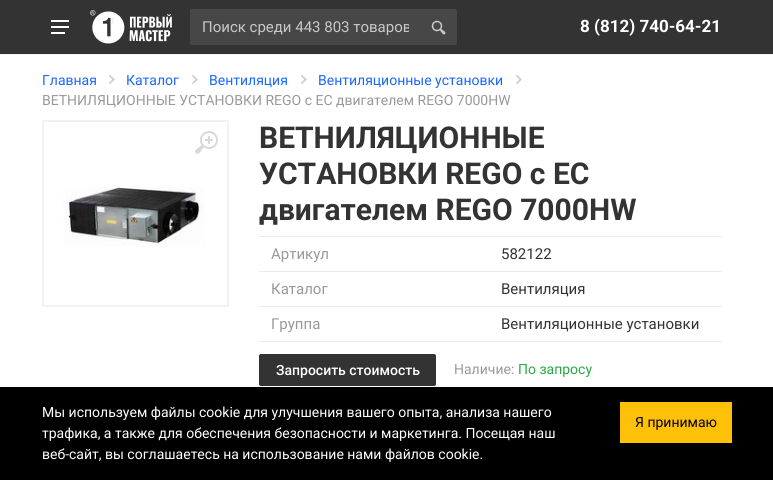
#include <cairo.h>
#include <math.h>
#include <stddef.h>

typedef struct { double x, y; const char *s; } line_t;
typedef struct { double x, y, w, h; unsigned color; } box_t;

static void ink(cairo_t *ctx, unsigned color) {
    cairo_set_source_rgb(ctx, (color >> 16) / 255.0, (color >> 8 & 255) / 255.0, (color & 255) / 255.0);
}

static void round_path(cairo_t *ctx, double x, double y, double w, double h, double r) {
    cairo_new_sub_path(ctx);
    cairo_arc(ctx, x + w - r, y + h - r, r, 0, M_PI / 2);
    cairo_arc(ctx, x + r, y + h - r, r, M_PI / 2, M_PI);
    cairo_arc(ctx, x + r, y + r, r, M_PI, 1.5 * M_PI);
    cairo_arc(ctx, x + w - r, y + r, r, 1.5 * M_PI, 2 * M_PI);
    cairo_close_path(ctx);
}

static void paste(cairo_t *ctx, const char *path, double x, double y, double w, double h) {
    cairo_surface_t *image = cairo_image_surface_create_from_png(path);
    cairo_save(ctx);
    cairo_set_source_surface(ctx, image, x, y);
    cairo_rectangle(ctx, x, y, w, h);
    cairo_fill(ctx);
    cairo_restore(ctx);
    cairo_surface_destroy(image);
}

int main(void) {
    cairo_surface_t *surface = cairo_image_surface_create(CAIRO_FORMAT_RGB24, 773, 480);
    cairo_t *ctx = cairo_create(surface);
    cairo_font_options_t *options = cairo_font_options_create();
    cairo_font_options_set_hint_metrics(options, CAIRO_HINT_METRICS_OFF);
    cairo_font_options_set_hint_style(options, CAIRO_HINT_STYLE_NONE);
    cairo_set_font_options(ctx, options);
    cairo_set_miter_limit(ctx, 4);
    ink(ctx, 0xFFFFFF);
    cairo_paint(ctx);
    {
        static const box_t items[] = {
            {0, 54, 773, 1, 0xF5F5F5},
            {0, 0, 773, 53, 0x333333},
            {0, 53, 773, 1, 0x313131},
        };
        for (size_t i = 0; i < sizeof items / sizeof *items; i++) {
            ink(ctx, items[i].color);
            cairo_rectangle(ctx, items[i].x, items[i].y, items[i].w, items[i].h);
            cairo_fill(ctx);
        }
    }
    paste(ctx, "media/1.png", 51, 20, 18, 14);
    paste(ctx, "media/2.png", 90, 10, 82, 34);
    ink(ctx, 0x474747);
    round_path(ctx, 190, 9, 267, 36, 2);
    cairo_fill(ctx);
    cairo_save(ctx);
    cairo_rectangle(ctx, 202, 18, 207, 18);
    cairo_clip(ctx);
    cairo_select_font_face(ctx, "Roboto", CAIRO_FONT_SLANT_NORMAL, CAIRO_FONT_WEIGHT_NORMAL);
    cairo_set_font_size(ctx, 15);
    ink(ctx, 0xC8C8C8);
    cairo_move_to(ctx, 202, 32);
    cairo_show_text(ctx, "Поиск среди 443 803 товаров");
    cairo_restore(ctx);
    paste(ctx, "media/3.png", 431, 20, 15, 15);
    cairo_select_font_face(ctx, "Roboto", CAIRO_FONT_SLANT_NORMAL, CAIRO_FONT_WEIGHT_BOLD);
    cairo_set_font_size(ctx, 17);
    ink(ctx, 0xFFFFFF);
    cairo_move_to(ctx, 580, 32);
    cairo_show_text(ctx, "8 (812) 740-64-21");
    cairo_select_font_face(ctx, "Roboto", CAIRO_FONT_SLANT_NORMAL, CAIRO_FONT_WEIGHT_NORMAL);
    cairo_set_font_size(ctx, 14);
    ink(ctx, 0x1A66FF);
    cairo_move_to(ctx, 42, 85);
    cairo_show_text(ctx, "Главная");
    paste(ctx, "media/4.png", 109, 75, 6, 9);
    cairo_move_to(ctx, 126, 85);
    cairo_show_text(ctx, "Каталог");
    paste(ctx, "media/4.png", 192, 75, 6, 9);
    cairo_move_to(ctx, 209, 85);
    cairo_show_text(ctx, "Вентиляция");
    paste(ctx, "media/4.png", 301, 75, 6, 9);
    cairo_move_to(ctx, 318, 85);
    cairo_show_text(ctx, "Вентиляционные установки");
    paste(ctx, "media/4.png", 516, 75, 6, 9);
    ink(ctx, 0x999999);
    cairo_move_to(ctx, 42, 105);
    cairo_show_text(ctx, "ВЕТНИЛЯЦИОННЫЕ УСТАНОВКИ REGO с EC двигателем REGO 7000HW");
    round_path(ctx, 43, 121, 185, 185, 1);
    ink(ctx, 0xF2F2F2);
    cairo_stroke(ctx);
    paste(ctx, "media/5.png", 195, 131, 23, 23);
    paste(ctx, "media/6.png", 63, 187, 142, 60);
    cairo_select_font_face(ctx, "Roboto", CAIRO_FONT_SLANT_NORMAL, CAIRO_FONT_WEIGHT_BOLD);
    cairo_set_font_size(ctx, 30);
    ink(ctx, 0x333333);
    {
        static const line_t items[] = {
            {259, 148, "ВЕТНИЛЯЦИОННЫЕ"},
            {259, 184, "УСТАНОВКИ REGO с EC"},
            {259, 220, "двигателем REGO 7000HW"},
        };
        for (size_t i = 0; i < sizeof items / sizeof *items; i++) {
            cairo_move_to(ctx, items[i].x, items[i].y);
            cairo_show_text(ctx, items[i].s);
        }
    }
    ink(ctx, 0xEBEBEB);
    cairo_rectangle(ctx, 259, 236, 463, 1);
    cairo_fill(ctx);
    cairo_rectangle(ctx, 259, 271, 463, 1);
    cairo_fill(ctx);
    cairo_select_font_face(ctx, "Roboto", CAIRO_FONT_SLANT_NORMAL, CAIRO_FONT_WEIGHT_NORMAL);
    cairo_set_font_size(ctx, 15);
    ink(ctx, 0x999999);
    cairo_move_to(ctx, 271, 259);
    cairo_show_text(ctx, "Артикул");
    ink(ctx, 0x333333);
    cairo_move_to(ctx, 501, 259);
    cairo_show_text(ctx, "582122");
    ink(ctx, 0xEBEBEB);
    cairo_rectangle(ctx, 259, 306, 463, 1);
    cairo_fill(ctx);
    ink(ctx, 0x999999);
    cairo_move_to(ctx, 271, 294);
    cairo_show_text(ctx, "Каталог");
    ink(ctx, 0x333333);
    cairo_move_to(ctx, 501, 294);
    cairo_show_text(ctx, "Вентиляция");
    ink(ctx, 0xEBEBEB);
    cairo_rectangle(ctx, 259, 341, 463, 1);
    cairo_fill(ctx);
    ink(ctx, 0x999999);
    cairo_move_to(ctx, 271, 329);
    cairo_show_text(ctx, "Группа");
    ink(ctx, 0x333333);
    cairo_move_to(ctx, 501, 329);
    cairo_show_text(ctx, "Вентиляционные установки");
    round_path(ctx, 259.5, 354.5, 176, 31, 1.5);
    cairo_fill_preserve(ctx);
    cairo_set_line_width(ctx, 1);
    cairo_stroke(ctx);
    cairo_select_font_face(ctx, "Roboto Medium", CAIRO_FONT_SLANT_NORMAL, CAIRO_FONT_WEIGHT_NORMAL);
    cairo_set_font_size(ctx, 14);
    ink(ctx, 0xFFFFFF);
    cairo_move_to(ctx, 276, 375);
    cairo_show_text(ctx, "Запросить стоимость");
    cairo_select_font_face(ctx, "Roboto", CAIRO_FONT_SLANT_NORMAL, CAIRO_FONT_WEIGHT_NORMAL);
    ink(ctx, 0x999999);
    cairo_move_to(ctx, 454, 374);
    cairo_show_text(ctx, "Наличие:");
    ink(ctx, 0x28A745);
    cairo_move_to(ctx, 518, 374);
    cairo_show_text(ctx, "По запросу");
    ink(ctx, 0x000000);
    cairo_rectangle(ctx, 0, 387, 773, 93);
    cairo_fill(ctx);
    ink(ctx, 0xFFFFFF);
    cairo_move_to(ctx, 42, 417);
    cairo_show_text(ctx, "Мы используем файлы cookie для улучшения вашего опыта, анализа нашего");
    ink(ctx, 0xFFC107);
    cairo_rectangle(ctx, 620, 402, 112, 41);
    cairo_fill(ctx);
    ink(ctx, 0x000000);
    cairo_move_to(ctx, 635, 427);
    cairo_show_text(ctx, "Я принимаю");
    ink(ctx, 0xFFFFFF);
    cairo_move_to(ctx, 42, 438);
    cairo_show_text(ctx, "трафика, а также для обеспечения безопасности и маркетинга. Посещая наш");
    cairo_move_to(ctx, 42, 459);
    cairo_show_text(ctx, "веб-сайт, вы соглашаетесь на использование нами файлов cookie.");
    cairo_surface_write_to_png(surface, "image.png");
    cairo_font_options_destroy(options);
    cairo_destroy(ctx);
    cairo_surface_destroy(surface);
    return 0;
}
